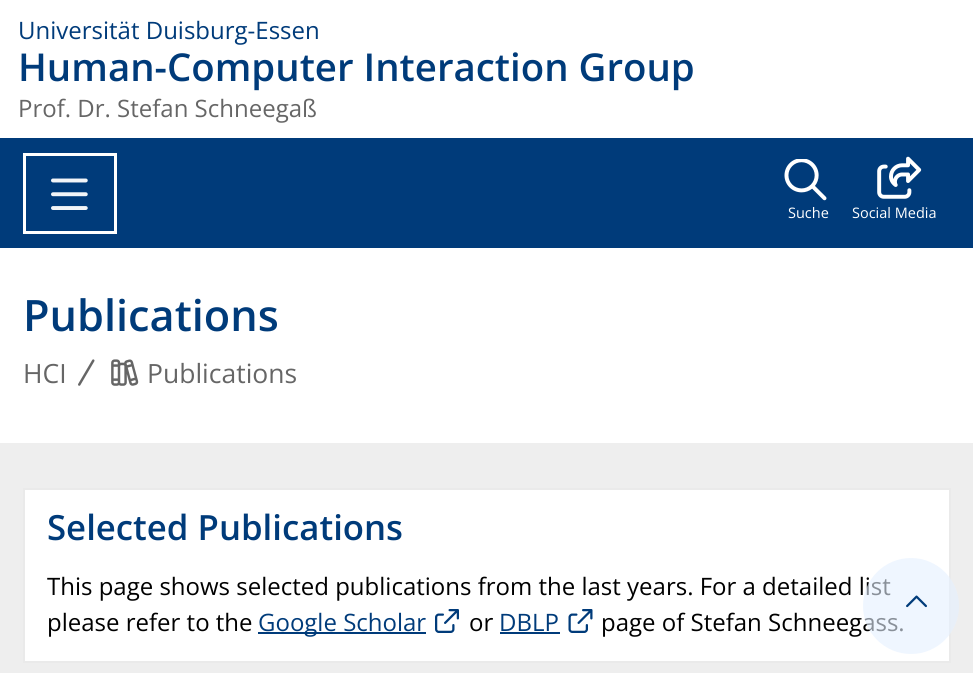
#include <cairo.h>
#include <math.h>
#include <stddef.h>


static void ink(cairo_t *ctx, unsigned color) {
    cairo_set_source_rgb(ctx, (color >> 16) / 255.0, (color >> 8 & 255) / 255.0, (color & 255) / 255.0);
}

static void paste(cairo_t *ctx, const char *path, double x, double y, double w, double h) {
    cairo_surface_t *image = cairo_image_surface_create_from_png(path);
    cairo_save(ctx);
    cairo_set_source_surface(ctx, image, x, y);
    cairo_rectangle(ctx, x, y, w, h);
    cairo_fill(ctx);
    cairo_restore(ctx);
    cairo_surface_destroy(image);
}

int main(void) {
    cairo_surface_t *surface = cairo_image_surface_create(CAIRO_FORMAT_RGB24, 973, 673);
    cairo_t *ctx = cairo_create(surface);
    cairo_font_options_t *options = cairo_font_options_create();
    cairo_font_options_set_hint_metrics(options, CAIRO_HINT_METRICS_OFF);
    cairo_font_options_set_hint_style(options, CAIRO_HINT_STYLE_NONE);
    cairo_set_font_options(ctx, options);
    cairo_set_miter_limit(ctx, 4);
    ink(ctx, 0xFFFFFF);
    cairo_paint(ctx);
    cairo_select_font_face(ctx, "Open Sans", CAIRO_FONT_SLANT_NORMAL, CAIRO_FONT_WEIGHT_NORMAL);
    cairo_set_font_size(ctx, 24);
    ink(ctx, 0x003B7A);
    cairo_move_to(ctx, 18, 39);
    cairo_show_text(ctx, "Universität Duisburg-Essen");
    cairo_select_font_face(ctx, "Open Sans SemiBold", CAIRO_FONT_SLANT_NORMAL, CAIRO_FONT_WEIGHT_NORMAL);
    cairo_set_font_size(ctx, 38.4);
    cairo_move_to(ctx, 18, 81);
    cairo_show_text(ctx, "Human-Computer Interaction Group");
    cairo_select_font_face(ctx, "Open Sans", CAIRO_FONT_SLANT_NORMAL, CAIRO_FONT_WEIGHT_NORMAL);
    cairo_set_font_size(ctx, 24);
    ink(ctx, 0x666666);
    cairo_move_to(ctx, 18, 117);
    cairo_show_text(ctx, "Prof. Dr. Stefan Schneegaß");
    ink(ctx, 0x003B7A);
    cairo_rectangle(ctx, 0, 138, 973, 110);
    cairo_fill(ctx);
    cairo_rectangle(ctx, 24.5, 154.5, 91, 78);
    ink(ctx, 0xFFFFFF);
    cairo_set_line_width(ctx, 3);
    cairo_stroke(ctx);
    paste(ctx, "media/1.png", 51, 178, 37, 32);
    paste(ctx, "media/2.png", 784, 159, 43, 42);
    cairo_set_font_size(ctx, 14.5);
    cairo_move_to(ctx, 788, 218);
    cairo_show_text(ctx, "Suche");
    paste(ctx, "media/3.png", 877, 156, 45, 43);
    cairo_move_to(ctx, 852, 218);
    cairo_show_text(ctx, "Social Media");
    cairo_select_font_face(ctx, "Open Sans SemiBold", CAIRO_FONT_SLANT_NORMAL, CAIRO_FONT_WEIGHT_NORMAL);
    cairo_set_font_size(ctx, 43.25);
    ink(ctx, 0x003B7A);
    cairo_move_to(ctx, 23, 331);
    cairo_show_text(ctx, "Publications");
    cairo_select_font_face(ctx, "Open Sans", CAIRO_FONT_SLANT_NORMAL, CAIRO_FONT_WEIGHT_NORMAL);
    cairo_set_font_size(ctx, 26.5);
    ink(ctx, 0x666666);
    cairo_move_to(ctx, 23, 383);
    cairo_show_text(ctx, "HCI");
    paste(ctx, "media/4.png", 78, 359, 17, 27);
    paste(ctx, "media/5.png", 111, 359, 28, 27);
    cairo_move_to(ctx, 147, 383);
    cairo_show_text(ctx, "Publications");
    ink(ctx, 0xEEEEEE);
    cairo_rectangle(ctx, 0, 443, 973, 230);
    cairo_fill(ctx);
    ink(ctx, 0xFFFFFF);
    cairo_rectangle(ctx, 24, 489, 926, 173);
    cairo_fill_preserve(ctx);
    ink(ctx, 0xEAEAEA);
    cairo_set_line_width(ctx, 2);
    cairo_stroke(ctx);
    cairo_select_font_face(ctx, "Open Sans SemiBold", CAIRO_FONT_SLANT_NORMAL, CAIRO_FONT_WEIGHT_NORMAL);
    cairo_set_font_size(ctx, 34.75);
    ink(ctx, 0x003B7A);
    cairo_move_to(ctx, 47, 540);
    cairo_show_text(ctx, "Selected Publications");
    cairo_select_font_face(ctx, "Open Sans", CAIRO_FONT_SLANT_NORMAL, CAIRO_FONT_WEIGHT_NORMAL);
    cairo_set_font_size(ctx, 24);
    ink(ctx, 0x000000);
    cairo_move_to(ctx, 47, 595);
    cairo_show_text(ctx, "This page shows selected publications from the last years. For a detailed list");
    cairo_move_to(ctx, 47, 631);
    cairo_show_text(ctx, "please refer to the");
    ink(ctx, 0x003B7A);
    cairo_rectangle(ctx, 258, 632, 168, 2);
    cairo_fill(ctx);
    cairo_move_to(ctx, 258, 631);
    cairo_show_text(ctx, "Google Scholar");
    paste(ctx, "media/6.png", 435, 609, 24, 24);
    ink(ctx, 0x000000);
    cairo_move_to(ctx, 469, 631);
    cairo_show_text(ctx, "or");
    ink(ctx, 0x003B7A);
    cairo_move_to(ctx, 499, 631);
    cairo_show_text(ctx, "DBLP");
    cairo_rectangle(ctx, 500, 632, 60, 2);
    cairo_fill(ctx);
    paste(ctx, "media/7.png", 568, 609, 25, 24);
    ink(ctx, 0x000000);
    cairo_move_to(ctx, 601, 631);
    cairo_show_text(ctx, "page of Stefan Schneegass.");
    cairo_set_source_rgba(ctx, 0.894, 0.941, 1, 0.6);
    cairo_new_path(ctx);
    cairo_arc(ctx, 911, 606, 48, 0, 2 * M_PI);
    cairo_fill(ctx);
    paste(ctx, "media/8.png", 906, 595, 21, 13);
    cairo_surface_write_to_png(surface, "image.png");
    cairo_font_options_destroy(options);
    cairo_destroy(ctx);
    cairo_surface_destroy(surface);
    return 0;
}
